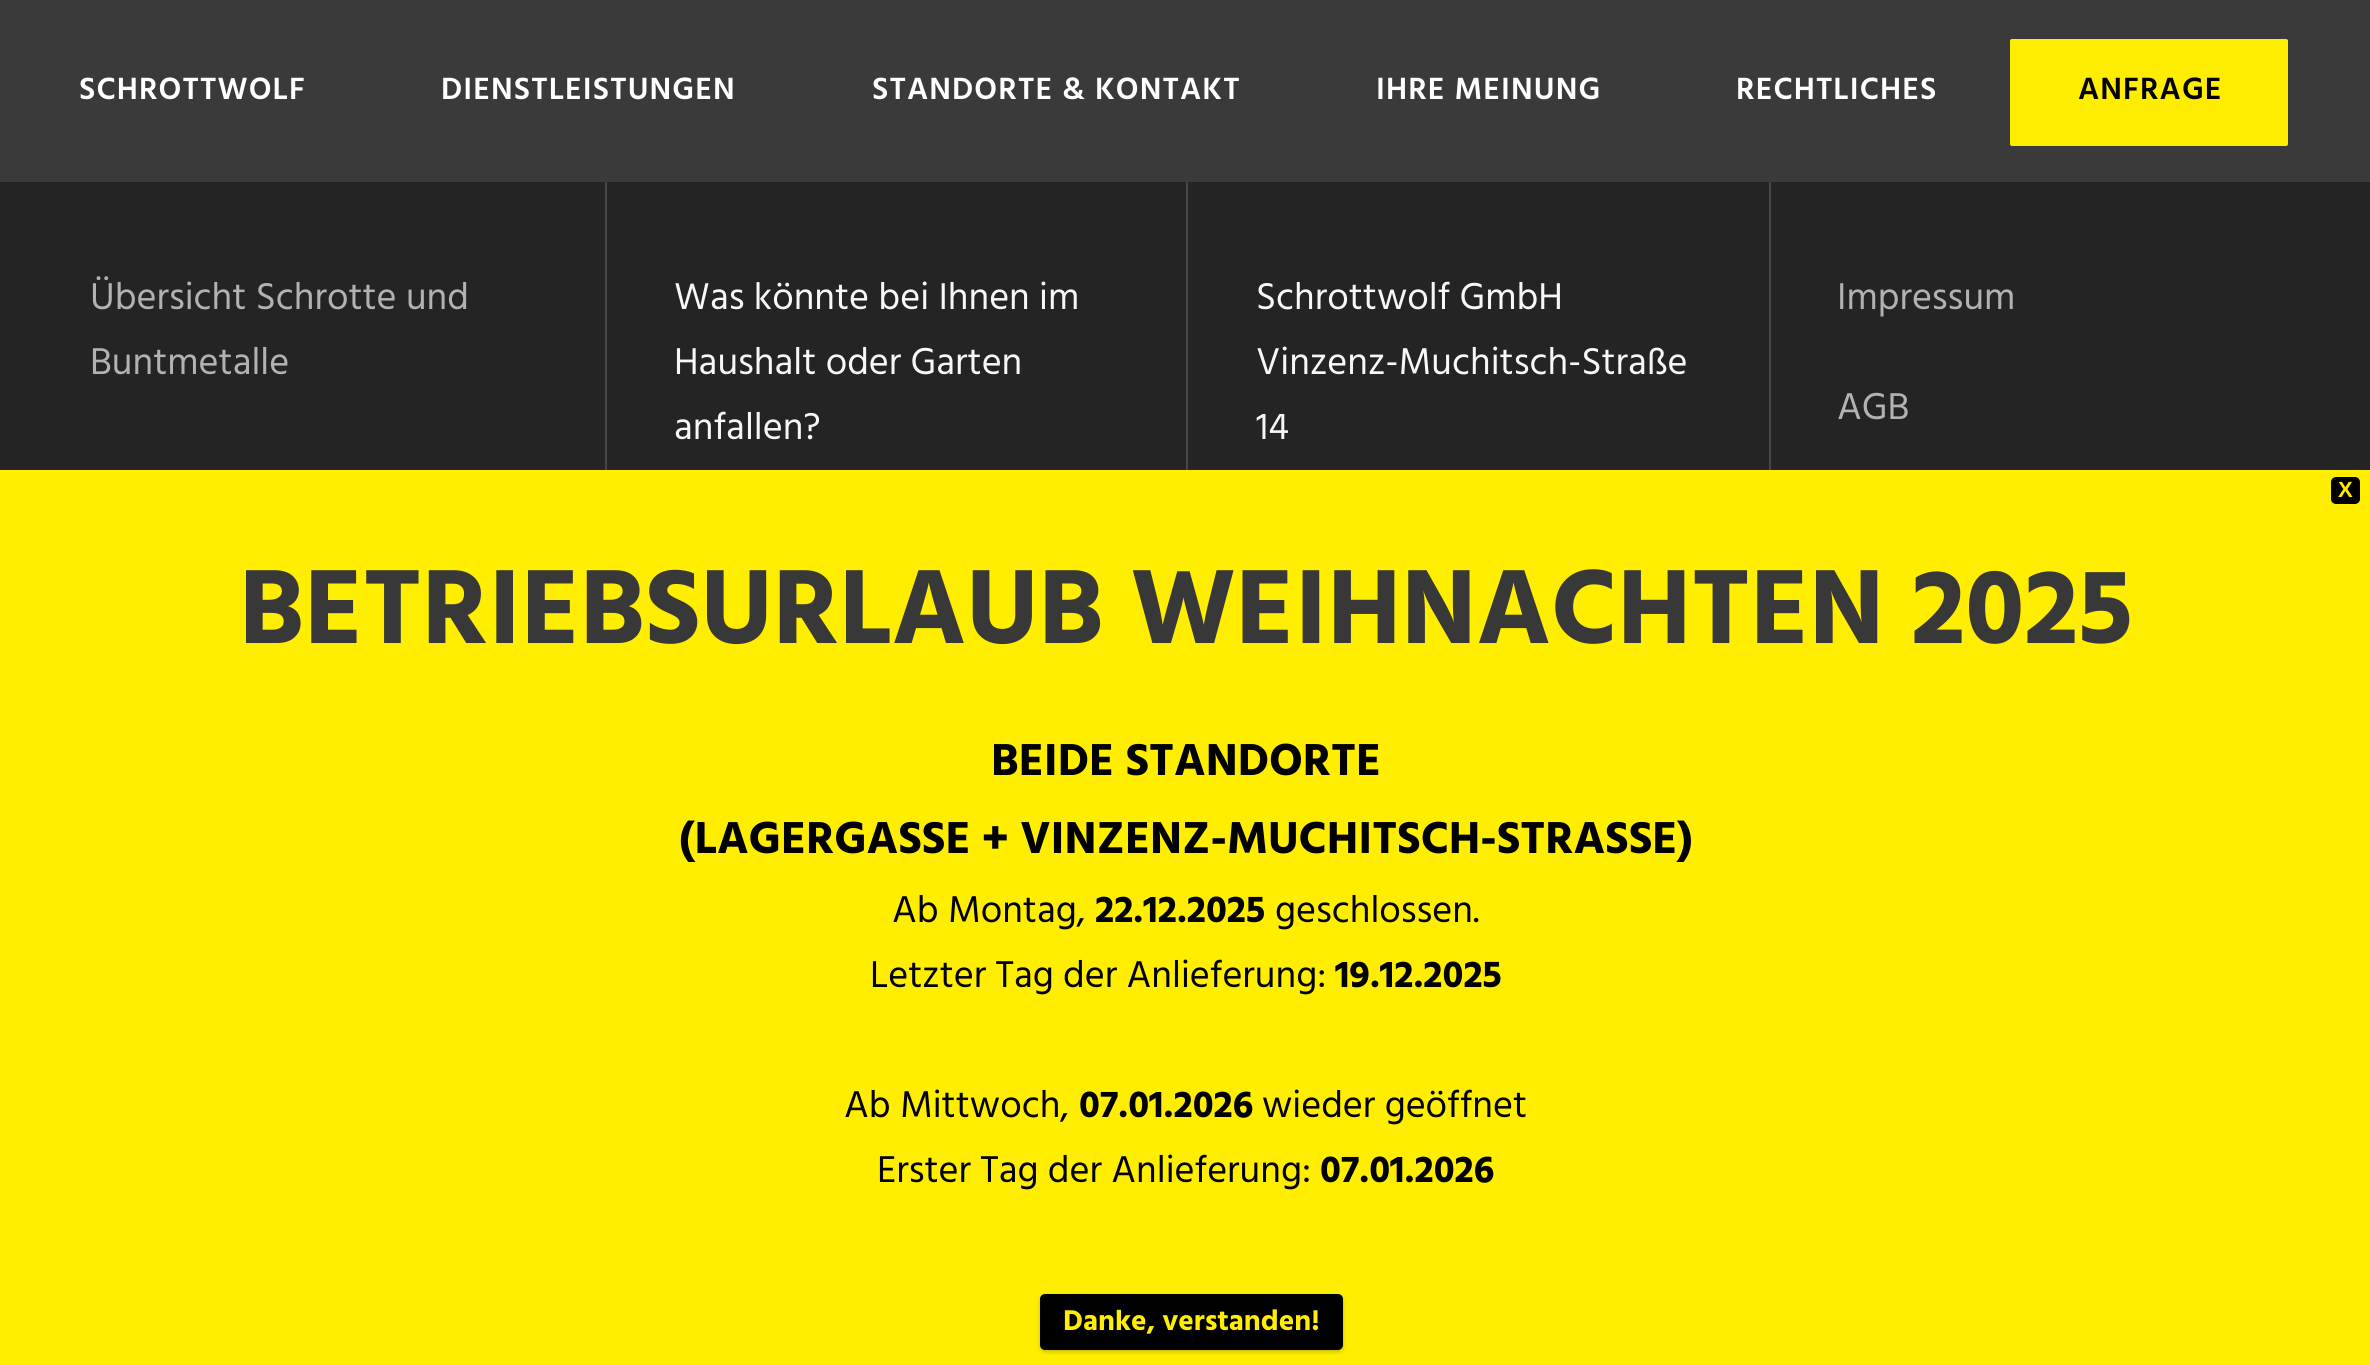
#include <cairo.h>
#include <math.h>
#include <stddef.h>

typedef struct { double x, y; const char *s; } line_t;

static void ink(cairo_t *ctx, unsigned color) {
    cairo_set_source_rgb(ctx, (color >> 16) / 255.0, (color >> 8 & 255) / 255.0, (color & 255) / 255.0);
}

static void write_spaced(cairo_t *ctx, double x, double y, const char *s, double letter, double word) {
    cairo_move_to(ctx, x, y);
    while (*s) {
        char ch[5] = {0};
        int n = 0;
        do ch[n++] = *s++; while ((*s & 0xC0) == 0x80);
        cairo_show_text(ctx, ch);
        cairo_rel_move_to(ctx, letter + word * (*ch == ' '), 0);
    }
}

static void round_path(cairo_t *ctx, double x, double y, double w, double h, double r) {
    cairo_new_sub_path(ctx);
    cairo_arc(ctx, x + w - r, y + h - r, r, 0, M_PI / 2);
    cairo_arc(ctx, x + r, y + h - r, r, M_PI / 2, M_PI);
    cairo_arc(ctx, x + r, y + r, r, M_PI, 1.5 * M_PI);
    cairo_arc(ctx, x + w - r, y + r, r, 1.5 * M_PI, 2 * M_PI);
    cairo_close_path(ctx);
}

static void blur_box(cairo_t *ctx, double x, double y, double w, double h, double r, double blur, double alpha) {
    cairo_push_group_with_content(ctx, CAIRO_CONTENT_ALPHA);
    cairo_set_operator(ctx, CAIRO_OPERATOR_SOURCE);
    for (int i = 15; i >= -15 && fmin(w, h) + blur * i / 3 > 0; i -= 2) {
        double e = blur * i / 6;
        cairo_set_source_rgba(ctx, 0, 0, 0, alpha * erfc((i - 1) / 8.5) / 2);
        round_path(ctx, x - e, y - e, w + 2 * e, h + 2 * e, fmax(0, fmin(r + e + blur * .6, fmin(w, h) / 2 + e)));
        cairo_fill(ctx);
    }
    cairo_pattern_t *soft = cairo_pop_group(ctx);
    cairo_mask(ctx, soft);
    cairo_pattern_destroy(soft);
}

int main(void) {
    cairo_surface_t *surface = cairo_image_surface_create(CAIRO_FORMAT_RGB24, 2370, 1365);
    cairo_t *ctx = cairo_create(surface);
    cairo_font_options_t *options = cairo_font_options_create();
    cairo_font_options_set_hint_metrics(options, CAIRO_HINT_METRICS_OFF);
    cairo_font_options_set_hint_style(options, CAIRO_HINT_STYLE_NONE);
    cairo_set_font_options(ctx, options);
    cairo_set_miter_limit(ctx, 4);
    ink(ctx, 0x242424);
    cairo_paint(ctx);
    ink(ctx, 0x3A3A3A);
    cairo_rectangle(ctx, 0, 0, 2370, 182);
    cairo_fill(ctx);
    cairo_select_font_face(ctx, "Hind SemiBold", CAIRO_FONT_SLANT_NORMAL, CAIRO_FONT_WEIGHT_NORMAL);
    cairo_set_font_size(ctx, 31.5);
    ink(ctx, 0xFFFFFF);
    {
        static const line_t items[] = {
            {79, 99, "SCHROTTWOLF"},
            {441, 99, "DIENSTLEISTUNGEN"},
            {872, 99, "STANDORTE & KONTAKT"},
            {1376, 99, "IHRE MEINUNG"},
            {1736, 99, "RECHTLICHES"},
        };
        for (size_t i = 0; i < sizeof items / sizeof *items; i++) {
            write_spaced(ctx, items[i].x, items[i].y, items[i].s, 1.1, 0);
        }
    }
    ink(ctx, 0xFFED00);
    round_path(ctx, 2007.5, 36.5, 283, 112, 4.5);
    cairo_fill_preserve(ctx);
    ink(ctx, 0x3A3A3A);
    cairo_set_line_width(ctx, 5);
    cairo_stroke(ctx);
    ink(ctx, 0x000000);
    write_spaced(ctx, 2078, 99, "ANFRAGE", 1.1, 0);
    cairo_select_font_face(ctx, "Hind", CAIRO_FONT_SLANT_NORMAL, CAIRO_FONT_WEIGHT_NORMAL);
    cairo_set_font_size(ctx, 38.25);
    ink(ctx, 0xB2B2B2);
    cairo_move_to(ctx, 90, 309);
    cairo_show_text(ctx, "Übersicht Schrotte und");
    cairo_move_to(ctx, 90, 374);
    cairo_show_text(ctx, "Buntmetalle");
    ink(ctx, 0x474747);
    cairo_rectangle(ctx, 605, 182, 2, 288);
    cairo_fill(ctx);
    ink(ctx, 0xF7F7F7);
    {
        static const line_t items[] = {
            {674, 309, "Was könnte bei Ihnen im"},
            {674, 374, "Haushalt oder Garten"},
            {674, 439, "anfallen?"},
        };
        for (size_t i = 0; i < sizeof items / sizeof *items; i++) {
            cairo_move_to(ctx, items[i].x, items[i].y);
            cairo_show_text(ctx, items[i].s);
        }
    }
    ink(ctx, 0x474747);
    cairo_rectangle(ctx, 1186, 182, 2, 288);
    cairo_fill(ctx);
    ink(ctx, 0xF7F7F7);
    {
        static const line_t items[] = {
            {1256, 309, "Schrottwolf GmbH"},
            {1256, 374, "Vinzenz-Muchitsch-Straße"},
            {1256, 439, "14"},
        };
        for (size_t i = 0; i < sizeof items / sizeof *items; i++) {
            cairo_move_to(ctx, items[i].x, items[i].y);
            cairo_show_text(ctx, items[i].s);
        }
    }
    ink(ctx, 0x474747);
    cairo_rectangle(ctx, 1769, 182, 2, 288);
    cairo_fill(ctx);
    ink(ctx, 0xB2B2B2);
    cairo_move_to(ctx, 1837, 309);
    cairo_show_text(ctx, "Impressum");
    cairo_move_to(ctx, 1837, 419);
    cairo_show_text(ctx, "AGB");
    ink(ctx, 0xFFEE00);
    cairo_rectangle(ctx, 0, 470, 2370, 895);
    cairo_fill(ctx);
    ink(ctx, 0x000000);
    round_path(ctx, 2332, 478, 27, 25, 4);
    cairo_fill_preserve(ctx);
    cairo_set_line_width(ctx, 2);
    cairo_stroke(ctx);
    cairo_select_font_face(ctx, "Liberation Sans", CAIRO_FONT_SLANT_NORMAL, CAIRO_FONT_WEIGHT_BOLD);
    cairo_set_font_size(ctx, 22);
    ink(ctx, 0xFFEE00);
    cairo_move_to(ctx, 2338, 497);
    cairo_show_text(ctx, "X");
    cairo_select_font_face(ctx, "Hind", CAIRO_FONT_SLANT_NORMAL, CAIRO_FONT_WEIGHT_BOLD);
    cairo_set_font_size(ctx, 108);
    ink(ctx, 0x383838);
    cairo_move_to(ctx, 239, 643);
    cairo_show_text(ctx, "BETRIEBSURLAUB WEIHNACHTEN 2025");
    cairo_set_font_size(ctx, 45.9);
    ink(ctx, 0x000000);
    cairo_move_to(ctx, 991, 775);
    cairo_show_text(ctx, "BEIDE STANDORTE");
    cairo_move_to(ctx, 679, 853);
    cairo_show_text(ctx, "(LAGERGASSE + VINZENZ-MUCHITSCH-STRASSE)");
    cairo_select_font_face(ctx, "Hind", CAIRO_FONT_SLANT_NORMAL, CAIRO_FONT_WEIGHT_NORMAL);
    cairo_set_font_size(ctx, 38.25);
    cairo_move_to(ctx, 892, 922);
    cairo_show_text(ctx, "Ab Montag,");
    cairo_select_font_face(ctx, "Hind", CAIRO_FONT_SLANT_NORMAL, CAIRO_FONT_WEIGHT_BOLD);
    cairo_move_to(ctx, 1095, 922);
    cairo_show_text(ctx, "22.12.2025");
    cairo_select_font_face(ctx, "Hind", CAIRO_FONT_SLANT_NORMAL, CAIRO_FONT_WEIGHT_NORMAL);
    cairo_move_to(ctx, 1275, 922);
    cairo_show_text(ctx, "geschlossen.");
    cairo_move_to(ctx, 870, 987);
    cairo_show_text(ctx, "Letzter Tag der Anlieferung:");
    cairo_select_font_face(ctx, "Hind", CAIRO_FONT_SLANT_NORMAL, CAIRO_FONT_WEIGHT_BOLD);
    cairo_move_to(ctx, 1335, 987);
    cairo_show_text(ctx, "19.12.2025");
    cairo_select_font_face(ctx, "Hind", CAIRO_FONT_SLANT_NORMAL, CAIRO_FONT_WEIGHT_NORMAL);
    cairo_move_to(ctx, 844, 1117);
    cairo_show_text(ctx, "Ab Mittwoch,");
    cairo_select_font_face(ctx, "Hind", CAIRO_FONT_SLANT_NORMAL, CAIRO_FONT_WEIGHT_BOLD);
    cairo_move_to(ctx, 1079, 1117);
    cairo_show_text(ctx, "07.01.2026");
    cairo_select_font_face(ctx, "Hind", CAIRO_FONT_SLANT_NORMAL, CAIRO_FONT_WEIGHT_NORMAL);
    cairo_move_to(ctx, 1262, 1117);
    cairo_show_text(ctx, "wieder geöffnet");
    cairo_move_to(ctx, 877, 1182);
    cairo_show_text(ctx, "Erster Tag der Anlieferung:");
    cairo_select_font_face(ctx, "Hind", CAIRO_FONT_SLANT_NORMAL, CAIRO_FONT_WEIGHT_BOLD);
    cairo_move_to(ctx, 1320, 1182);
    cairo_show_text(ctx, "07.01.2026");
    ink(ctx, 0x000000);
    blur_box(ctx, 1040, 1296, 303, 56, 5, 2, 0.2);
    ink(ctx, 0x000000);
    round_path(ctx, 1040, 1294, 303, 56, 5);
    cairo_fill(ctx);
    cairo_set_font_size(ctx, 29.25);
    ink(ctx, 0xFFEE00);
    cairo_move_to(ctx, 1063, 1330);
    cairo_show_text(ctx, "Danke, verstanden!");
    cairo_surface_write_to_png(surface, "image.png");
    cairo_font_options_destroy(options);
    cairo_destroy(ctx);
    cairo_surface_destroy(surface);
    return 0;
}
